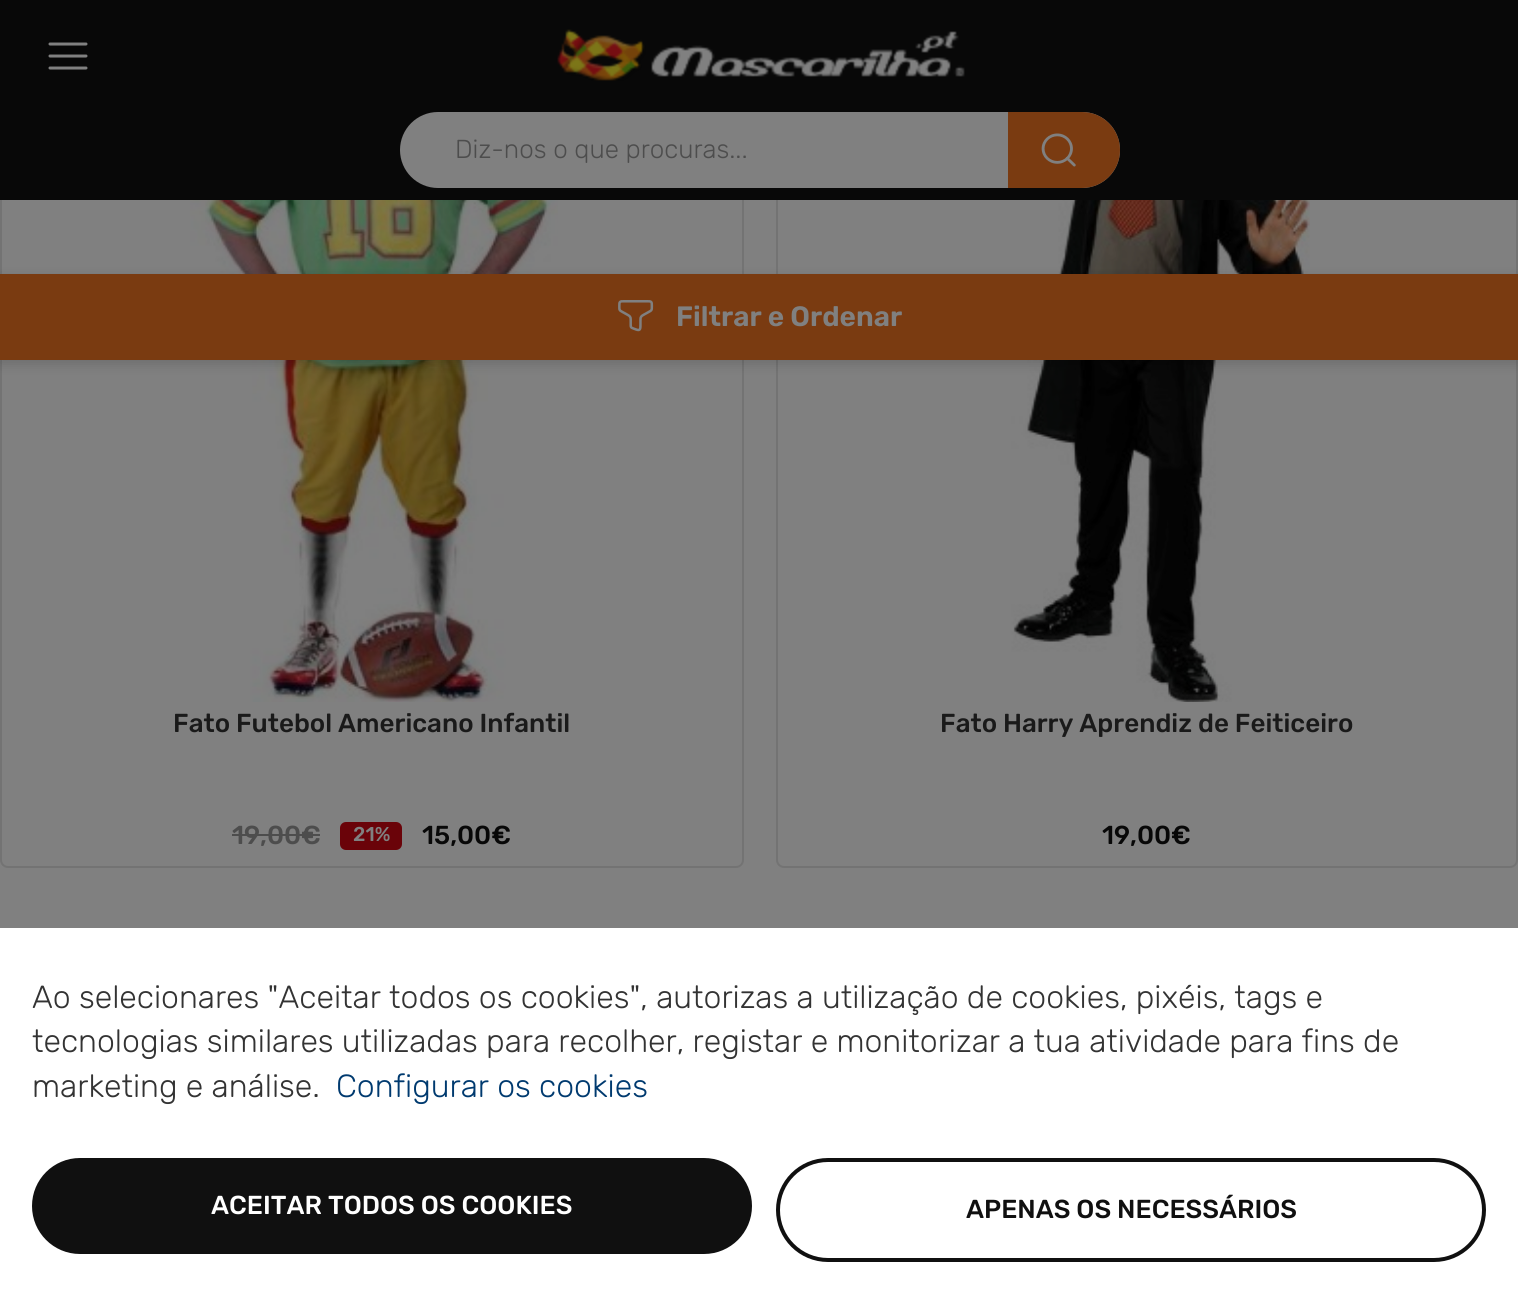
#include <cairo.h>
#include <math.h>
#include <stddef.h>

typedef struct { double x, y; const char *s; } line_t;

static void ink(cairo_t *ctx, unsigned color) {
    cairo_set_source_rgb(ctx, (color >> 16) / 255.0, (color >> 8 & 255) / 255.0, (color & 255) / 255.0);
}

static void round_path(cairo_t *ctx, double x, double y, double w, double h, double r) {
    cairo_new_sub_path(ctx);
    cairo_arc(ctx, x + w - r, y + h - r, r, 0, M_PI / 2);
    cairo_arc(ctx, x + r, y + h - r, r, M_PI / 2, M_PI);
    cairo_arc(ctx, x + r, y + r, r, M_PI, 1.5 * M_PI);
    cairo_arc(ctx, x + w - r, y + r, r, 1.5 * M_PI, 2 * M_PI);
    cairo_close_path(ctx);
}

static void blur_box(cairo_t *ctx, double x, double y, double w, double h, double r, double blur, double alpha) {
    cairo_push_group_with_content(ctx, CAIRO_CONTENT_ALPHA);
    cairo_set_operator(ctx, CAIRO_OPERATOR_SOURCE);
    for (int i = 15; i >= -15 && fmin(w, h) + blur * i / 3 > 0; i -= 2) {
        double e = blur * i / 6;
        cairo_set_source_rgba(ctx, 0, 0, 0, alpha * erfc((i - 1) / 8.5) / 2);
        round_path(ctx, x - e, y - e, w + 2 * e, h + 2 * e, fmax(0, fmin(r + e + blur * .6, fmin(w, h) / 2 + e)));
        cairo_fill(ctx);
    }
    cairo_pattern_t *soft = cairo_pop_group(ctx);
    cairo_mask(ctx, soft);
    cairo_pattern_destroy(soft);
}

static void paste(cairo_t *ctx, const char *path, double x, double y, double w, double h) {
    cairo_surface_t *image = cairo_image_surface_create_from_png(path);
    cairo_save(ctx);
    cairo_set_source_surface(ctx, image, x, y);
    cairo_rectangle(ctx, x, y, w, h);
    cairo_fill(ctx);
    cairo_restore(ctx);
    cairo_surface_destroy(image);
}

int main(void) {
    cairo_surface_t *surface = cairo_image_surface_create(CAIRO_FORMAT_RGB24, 1518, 1293);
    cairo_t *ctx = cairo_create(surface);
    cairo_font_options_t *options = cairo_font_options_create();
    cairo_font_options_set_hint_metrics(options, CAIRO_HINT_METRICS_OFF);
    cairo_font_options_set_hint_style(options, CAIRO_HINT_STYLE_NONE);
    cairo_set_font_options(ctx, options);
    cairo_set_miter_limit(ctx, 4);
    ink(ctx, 0x808080);
    cairo_paint(ctx);
    round_path(ctx, 1, -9, 742, 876, 7);
    ink(ctx, 0x737373);
    cairo_stroke(ctx);
    round_path(ctx, 777, -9, 740, 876, 7);
    cairo_stroke(ctx);
    ink(ctx, 0x080808);
    cairo_rectangle(ctx, 0, 0, 1518, 200);
    cairo_fill(ctx);
    paste(ctx, "media/1.png", 48, 42, 40, 28);
    paste(ctx, "media/2.png", 557, 29, 408, 52);
    ink(ctx, 0x808080);
    round_path(ctx, 400, 112, 720, 76, 38);
    cairo_fill(ctx);
    cairo_select_font_face(ctx, "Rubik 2 Light", CAIRO_FONT_SLANT_NORMAL, CAIRO_FONT_WEIGHT_NORMAL);
    cairo_set_font_size(ctx, 26);
    ink(ctx, 0x4D4D4D);
    cairo_move_to(ctx, 455, 158);
    cairo_show_text(ctx, "Diz-nos o que procuras...");
    ink(ctx, 0x7A3B11);
    cairo_new_path(ctx);
    cairo_move_to(ctx, 1008, 112);
    cairo_line_to(ctx, 1082, 112);
    cairo_curve_to(ctx, 1103, 112, 1120, 129, 1120, 150);
    cairo_curve_to(ctx, 1120, 171, 1103, 188, 1082, 188);
    cairo_line_to(ctx, 1008, 188);
    cairo_close_path(ctx);
    cairo_fill(ctx);
    paste(ctx, "media/3.png", 1041, 133, 35, 34);
    paste(ctx, "media/5.png", 190, 200, 368, 502);
    paste(ctx, "media/6.png", 983, 200, 327, 502);
    ink(ctx, 0x000000);
    blur_box(ctx, 0, 278, 1518, 86, 0, 6, 0.15);
    ink(ctx, 0x7A3B11);
    cairo_rectangle(ctx, 0, 274, 1518, 86);
    cairo_fill(ctx);
    paste(ctx, "media/4.png", 618, 300, 36, 32);
    cairo_select_font_face(ctx, "Rubik SemiBold", CAIRO_FONT_SLANT_NORMAL, CAIRO_FONT_WEIGHT_NORMAL);
    cairo_set_font_size(ctx, 28);
    ink(ctx, 0x808080);
    cairo_move_to(ctx, 676, 326);
    cairo_show_text(ctx, "Filtrar e Ordenar");
    cairo_select_font_face(ctx, "Rubik Light", CAIRO_FONT_SLANT_NORMAL, CAIRO_FONT_WEIGHT_NORMAL);
    cairo_set_font_size(ctx, 26);
    ink(ctx, 0x1A1A1A);
    cairo_move_to(ctx, 173, 732);
    cairo_show_text(ctx, "Fato Futebol Americano Infantil");
    ink(ctx, 0x4D4D4D);
    cairo_move_to(ctx, 232, 844);
    cairo_show_text(ctx, "19,00€");
    cairo_rectangle(ctx, 232, 834, 88, 2);
    cairo_fill(ctx);
    ink(ctx, 0x6A0309);
    round_path(ctx, 340, 822, 62, 28, 6);
    cairo_fill(ctx);
    cairo_set_font_size(ctx, 20);
    ink(ctx, 0x808080);
    cairo_move_to(ctx, 353, 841);
    cairo_show_text(ctx, "21%");
    cairo_set_font_size(ctx, 26);
    ink(ctx, 0x080808);
    cairo_move_to(ctx, 422, 844);
    cairo_show_text(ctx, "15,00€");
    ink(ctx, 0x1A1A1A);
    cairo_move_to(ctx, 940, 732);
    cairo_show_text(ctx, "Fato Harry Aprendiz de Feiticeiro");
    ink(ctx, 0x080808);
    cairo_move_to(ctx, 1102, 844);
    cairo_show_text(ctx, "19,00€");
    ink(ctx, 0xFFFFFF);
    cairo_rectangle(ctx, 0, 928, 1518, 365);
    cairo_fill(ctx);
    cairo_select_font_face(ctx, "Rubik 2 Light", CAIRO_FONT_SLANT_NORMAL, CAIRO_FONT_WEIGHT_NORMAL);
    cairo_set_font_size(ctx, 32);
    ink(ctx, 0x333333);
    {
        static const line_t items[] = {
            {32, 1008, "Ao selecionares \"Aceitar todos os cookies\", autorizas a utilização de cookies, pixéis, tags e"},
            {32, 1052, "tecnologias similares utilizadas para recolher, registar e monitorizar a tua atividade para fins de"},
            {32, 1097, "marketing e análise."},
        };
        for (size_t i = 0; i < sizeof items / sizeof *items; i++) {
            cairo_move_to(ctx, items[i].x, items[i].y);
            cairo_show_text(ctx, items[i].s);
        }
    }
    ink(ctx, 0x003A6F);
    cairo_move_to(ctx, 336, 1097);
    cairo_show_text(ctx, "Configurar os cookies");
    ink(ctx, 0x101010);
    round_path(ctx, 34, 1160, 716, 92, 46);
    cairo_fill_preserve(ctx);
    cairo_set_line_width(ctx, 4);
    cairo_stroke(ctx);
    cairo_select_font_face(ctx, "Rubik Light", CAIRO_FONT_SLANT_NORMAL, CAIRO_FONT_WEIGHT_NORMAL);
    cairo_set_font_size(ctx, 26);
    ink(ctx, 0xFFFFFF);
    cairo_move_to(ctx, 211, 1214);
    cairo_show_text(ctx, "ACEITAR TODOS OS COOKIES");
    round_path(ctx, 778, 1160, 706, 100, 50);
    ink(ctx, 0x101010);
    cairo_stroke(ctx);
    cairo_move_to(ctx, 966, 1218);
    cairo_show_text(ctx, "APENAS OS NECESSÁRIOS");
    cairo_surface_write_to_png(surface, "image.png");
    cairo_font_options_destroy(options);
    cairo_destroy(ctx);
    cairo_surface_destroy(surface);
    return 0;
}
